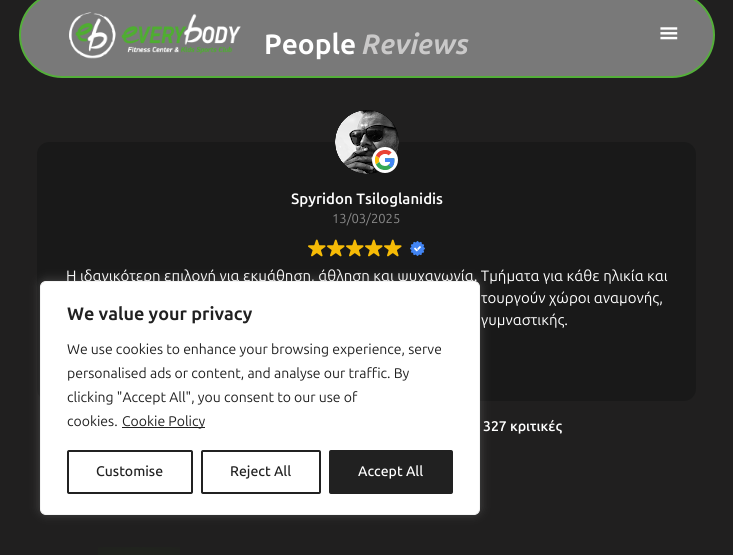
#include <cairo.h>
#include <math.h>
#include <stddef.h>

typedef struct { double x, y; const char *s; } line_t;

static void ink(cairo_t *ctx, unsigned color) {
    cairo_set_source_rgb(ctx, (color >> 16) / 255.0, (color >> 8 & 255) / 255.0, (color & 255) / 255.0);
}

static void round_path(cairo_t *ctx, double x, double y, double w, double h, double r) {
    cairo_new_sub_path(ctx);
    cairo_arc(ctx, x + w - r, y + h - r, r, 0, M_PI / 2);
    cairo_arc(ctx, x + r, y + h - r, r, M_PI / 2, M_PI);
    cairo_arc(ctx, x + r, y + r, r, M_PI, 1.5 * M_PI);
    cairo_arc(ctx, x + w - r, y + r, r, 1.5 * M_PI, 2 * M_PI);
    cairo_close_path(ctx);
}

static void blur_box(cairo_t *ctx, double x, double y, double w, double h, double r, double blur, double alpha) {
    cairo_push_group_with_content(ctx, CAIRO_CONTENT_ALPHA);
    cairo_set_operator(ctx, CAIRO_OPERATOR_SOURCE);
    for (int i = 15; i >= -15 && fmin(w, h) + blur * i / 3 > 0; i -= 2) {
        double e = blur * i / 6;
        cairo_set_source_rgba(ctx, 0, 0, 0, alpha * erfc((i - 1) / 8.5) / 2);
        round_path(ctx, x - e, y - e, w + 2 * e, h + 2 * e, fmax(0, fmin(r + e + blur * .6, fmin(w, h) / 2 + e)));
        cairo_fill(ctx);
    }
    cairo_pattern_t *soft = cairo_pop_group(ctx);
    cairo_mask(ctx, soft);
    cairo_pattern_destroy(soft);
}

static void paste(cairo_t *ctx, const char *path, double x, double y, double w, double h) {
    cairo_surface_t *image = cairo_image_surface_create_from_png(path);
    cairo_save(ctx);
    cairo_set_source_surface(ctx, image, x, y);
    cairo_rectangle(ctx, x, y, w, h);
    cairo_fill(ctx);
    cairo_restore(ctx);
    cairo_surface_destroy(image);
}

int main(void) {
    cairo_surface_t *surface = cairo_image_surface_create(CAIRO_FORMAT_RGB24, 733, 555);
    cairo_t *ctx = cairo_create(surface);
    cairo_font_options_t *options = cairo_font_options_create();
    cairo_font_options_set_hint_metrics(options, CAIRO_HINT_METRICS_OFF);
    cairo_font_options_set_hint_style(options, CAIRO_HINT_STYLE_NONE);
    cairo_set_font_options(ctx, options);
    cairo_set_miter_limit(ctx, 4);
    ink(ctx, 0x201F1F);
    cairo_paint(ctx);
    cairo_select_font_face(ctx, "Ubuntu Sans", CAIRO_FONT_SLANT_NORMAL, CAIRO_FONT_WEIGHT_BOLD);
    cairo_set_font_size(ctx, 28);
    ink(ctx, 0xFFFFFF);
    cairo_move_to(ctx, 264, 54);
    cairo_show_text(ctx, "People");
    cairo_select_font_face(ctx, "Ubuntu Sans", CAIRO_FONT_SLANT_ITALIC, CAIRO_FONT_WEIGHT_BOLD);
    ink(ctx, 0xA6A5A5);
    cairo_move_to(ctx, 362, 54);
    cairo_show_text(ctx, "Reviews");
    cairo_set_source_rgba(ctx, 1, 1, 1, 0.4);
    round_path(ctx, 20, -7, 694, 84, 42);
    cairo_fill_preserve(ctx);
    ink(ctx, 0x54AF3A);
    cairo_stroke(ctx);
    paste(ctx, "media/1.png", 69, 12, 172, 47);
    paste(ctx, "media/2.png", 660, 27, 18, 13);
    paste(ctx, "media/3.png", 98, 547, 82, 8);
    ink(ctx, 0x191919);
    round_path(ctx, 37, 142, 659, 259, 12);
    cairo_fill(ctx);
    paste(ctx, "media/4.png", 335, 110, 64, 64);
    ink(ctx, 0xFFFFFF);
    cairo_arc(ctx, 385, 160, 12, 0, 2 * M_PI);
    cairo_fill_preserve(ctx);
    cairo_stroke(ctx);
    paste(ctx, "media/5.png", 375, 150, 20, 20);
    cairo_select_font_face(ctx, "Ubuntu Sans SemiBold", CAIRO_FONT_SLANT_NORMAL, CAIRO_FONT_WEIGHT_NORMAL);
    cairo_set_font_size(ctx, 15);
    cairo_move_to(ctx, 291, 204);
    cairo_show_text(ctx, "Spyridon Tsiloglanidis");
    cairo_select_font_face(ctx, "Ubuntu Sans", CAIRO_FONT_SLANT_NORMAL, CAIRO_FONT_WEIGHT_NORMAL);
    cairo_set_font_size(ctx, 13);
    ink(ctx, 0x8A8A8A);
    cairo_move_to(ctx, 332, 223);
    cairo_show_text(ctx, "13/03/2025");
    paste(ctx, "media/6.png", 308, 239, 18, 18);
    paste(ctx, "media/6.png", 327, 239, 18, 18);
    paste(ctx, "media/6.png", 346, 239, 18, 18);
    paste(ctx, "media/6.png", 365, 239, 18, 18);
    paste(ctx, "media/6.png", 384, 239, 18, 18);
    paste(ctx, "media/7.png", 410, 241, 15, 15);
    cairo_set_font_size(ctx, 15);
    ink(ctx, 0xFFFFFF);
    {
        static const line_t items[] = {
            {66, 281, "Η ιδανικότερη επιλογή για εκμάθηση, άθληση και ψυχαγωγία. Τμήματα για κάθε ηλικία και"},
            {481, 303, "τουργούν χώροι αναμονής,"},
            {481, 325, "γυμναστικής."},
        };
        for (size_t i = 0; i < sizeof items / sizeof *items; i++) {
            cairo_move_to(ctx, items[i].x, items[i].y);
            cairo_show_text(ctx, items[i].s);
        }
    }
    cairo_select_font_face(ctx, "Ubuntu Sans SemiBold", CAIRO_FONT_SLANT_NORMAL, CAIRO_FONT_WEIGHT_NORMAL);
    cairo_set_font_size(ctx, 14);
    cairo_move_to(ctx, 483, 431);
    cairo_show_text(ctx, "327 κριτικές");
    ink(ctx, 0xACABAB);
    blur_box(ctx, 40, 280, 440, 234, 6, 5, 0.3);
    ink(ctx, 0xFFFFFF);
    round_path(ctx, 40.5, 281.5, 439, 233, 5.5);
    cairo_fill_preserve(ctx);
    ink(ctx, 0xF4F4F4);
    cairo_set_line_width(ctx, 1);
    cairo_stroke(ctx);
    cairo_select_font_face(ctx, "Ubuntu Sans", CAIRO_FONT_SLANT_NORMAL, CAIRO_FONT_WEIGHT_BOLD);
    cairo_set_font_size(ctx, 18);
    ink(ctx, 0x212121);
    cairo_move_to(ctx, 67, 320);
    cairo_show_text(ctx, "We value your privacy");
    cairo_select_font_face(ctx, "Ubuntu Sans", CAIRO_FONT_SLANT_NORMAL, CAIRO_FONT_WEIGHT_NORMAL);
    cairo_set_font_size(ctx, 14);
    {
        static const line_t items[] = {
            {67, 354, "We use cookies to enhance your browsing experience, serve"},
            {67, 378, "personalised ads or content, and analyse our traffic. By"},
            {67, 402, "clicking \"Accept All\", you consent to our use of"},
            {67, 426, "cookies."},
        };
        for (size_t i = 0; i < sizeof items / sizeof *items; i++) {
            cairo_move_to(ctx, items[i].x, items[i].y);
            cairo_show_text(ctx, items[i].s);
        }
    }
    cairo_rectangle(ctx, 122, 427, 83, 1);
    cairo_fill(ctx);
    cairo_move_to(ctx, 122, 426);
    cairo_show_text(ctx, "Cookie Policy");
    round_path(ctx, 68, 451, 124, 42, 1);
    cairo_set_line_width(ctx, 2);
    cairo_stroke(ctx);
    cairo_select_font_face(ctx, "Ubuntu Sans Medium", CAIRO_FONT_SLANT_NORMAL, CAIRO_FONT_WEIGHT_NORMAL);
    cairo_move_to(ctx, 96, 476);
    cairo_show_text(ctx, "Customise");
    round_path(ctx, 202, 451, 118, 42, 1);
    cairo_stroke(ctx);
    cairo_move_to(ctx, 230, 476);
    cairo_show_text(ctx, "Reject All");
    round_path(ctx, 330, 451, 122, 42, 1);
    cairo_fill_preserve(ctx);
    cairo_stroke(ctx);
    ink(ctx, 0xFFFFFF);
    cairo_move_to(ctx, 358, 476);
    cairo_show_text(ctx, "Accept All");
    cairo_surface_write_to_png(surface, "image.png");
    cairo_font_options_destroy(options);
    cairo_destroy(ctx);
    cairo_surface_destroy(surface);
    return 0;
}
